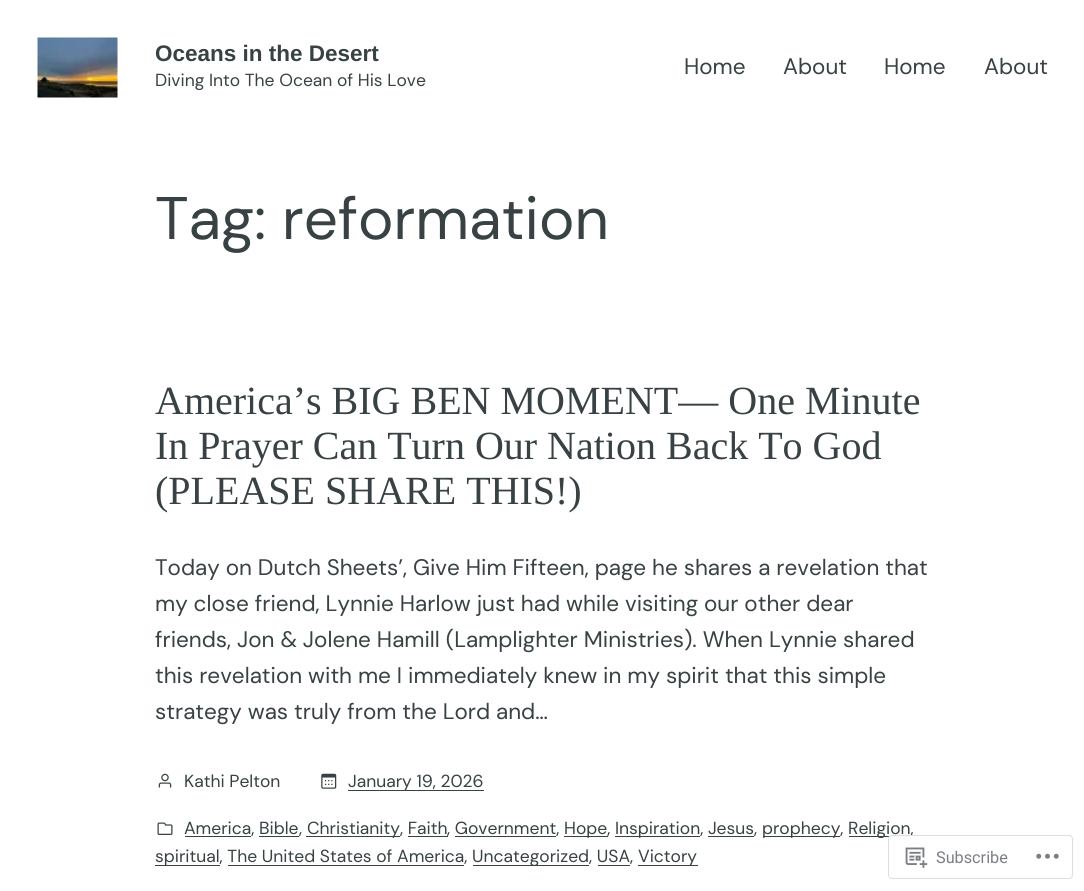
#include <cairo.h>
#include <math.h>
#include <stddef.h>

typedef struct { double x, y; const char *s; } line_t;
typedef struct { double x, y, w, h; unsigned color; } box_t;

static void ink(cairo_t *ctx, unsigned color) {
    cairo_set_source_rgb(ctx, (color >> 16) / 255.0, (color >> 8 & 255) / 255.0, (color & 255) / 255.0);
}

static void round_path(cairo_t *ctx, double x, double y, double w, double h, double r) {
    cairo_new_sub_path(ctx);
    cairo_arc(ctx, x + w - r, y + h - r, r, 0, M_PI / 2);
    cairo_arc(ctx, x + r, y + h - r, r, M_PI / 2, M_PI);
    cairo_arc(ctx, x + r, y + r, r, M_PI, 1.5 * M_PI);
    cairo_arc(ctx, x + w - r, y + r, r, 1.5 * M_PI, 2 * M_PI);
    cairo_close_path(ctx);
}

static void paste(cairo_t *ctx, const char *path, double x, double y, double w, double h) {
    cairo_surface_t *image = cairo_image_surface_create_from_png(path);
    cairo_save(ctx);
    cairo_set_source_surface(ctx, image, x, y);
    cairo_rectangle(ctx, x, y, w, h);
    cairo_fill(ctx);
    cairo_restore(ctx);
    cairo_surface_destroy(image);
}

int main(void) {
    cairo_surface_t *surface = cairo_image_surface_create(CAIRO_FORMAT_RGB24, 1084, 891);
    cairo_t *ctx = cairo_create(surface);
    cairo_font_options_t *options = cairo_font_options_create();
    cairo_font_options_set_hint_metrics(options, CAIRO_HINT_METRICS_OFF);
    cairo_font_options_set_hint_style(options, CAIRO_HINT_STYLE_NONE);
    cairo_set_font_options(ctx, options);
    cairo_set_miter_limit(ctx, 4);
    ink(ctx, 0xFFFFFF);
    cairo_paint(ctx);
    paste(ctx, "media/1.png", 37, 37, 81, 61);
    cairo_select_font_face(ctx, "Liberation Sans", CAIRO_FONT_SLANT_NORMAL, CAIRO_FONT_WEIGHT_BOLD);
    cairo_set_font_size(ctx, 22.5);
    ink(ctx, 0x384143);
    cairo_move_to(ctx, 155, 61);
    cairo_show_text(ctx, "Oceans in the Desert");
    cairo_select_font_face(ctx, "DM Sans", CAIRO_FONT_SLANT_NORMAL, CAIRO_FONT_WEIGHT_NORMAL);
    cairo_set_font_size(ctx, 17.5);
    cairo_move_to(ctx, 155, 86);
    cairo_show_text(ctx, "Diving Into The Ocean of His Love");
    cairo_set_font_size(ctx, 22.5);
    {
        static const line_t items[] = {
            {684, 74, "Home"},
            {783, 74, "About"},
            {884, 74, "Home"},
            {984, 74, "About"},
        };
        for (size_t i = 0; i < sizeof items / sizeof *items; i++) {
            cairo_move_to(ctx, items[i].x, items[i].y);
            cairo_show_text(ctx, items[i].s);
        }
    }
    cairo_set_font_size(ctx, 60);
    cairo_move_to(ctx, 155, 239);
    cairo_show_text(ctx, "Tag: reformation");
    cairo_select_font_face(ctx, "Liberation Serif", CAIRO_FONT_SLANT_NORMAL, CAIRO_FONT_WEIGHT_NORMAL);
    cairo_set_font_size(ctx, 40);
    {
        static const line_t items[] = {
            {155, 414, "America’s BIG BEN MOMENT— One Minute"},
            {155, 459, "In Prayer Can Turn Our Nation Back To God"},
            {155, 504, "(PLEASE SHARE THIS!)"},
        };
        for (size_t i = 0; i < sizeof items / sizeof *items; i++) {
            cairo_move_to(ctx, items[i].x, items[i].y);
            cairo_show_text(ctx, items[i].s);
        }
    }
    cairo_select_font_face(ctx, "DM Sans", CAIRO_FONT_SLANT_NORMAL, CAIRO_FONT_WEIGHT_NORMAL);
    cairo_set_font_size(ctx, 22.5);
    {
        static const line_t items[] = {
            {155, 575, "Today on Dutch Sheets’, Give Him Fifteen, page he shares a revelation that"},
            {155, 611, "my close friend, Lynnie Harlow just had while visiting our other dear"},
            {155, 647, "friends, Jon & Jolene Hamill (Lamplighter Ministries). When Lynnie shared"},
            {155, 683, "this revelation with me I immediately knew in my spirit that this simple"},
            {155, 719, "strategy was truly from the Lord and…"},
        };
        for (size_t i = 0; i < sizeof items / sizeof *items; i++) {
            cairo_move_to(ctx, items[i].x, items[i].y);
            cairo_show_text(ctx, items[i].s);
        }
    }
    paste(ctx, "media/2.png", 158, 773, 14, 15);
    cairo_set_font_size(ctx, 17.5);
    cairo_move_to(ctx, 184, 787);
    cairo_show_text(ctx, "Kathi Pelton");
    paste(ctx, "media/3.png", 321, 773, 16, 16);
    cairo_rectangle(ctx, 348, 790, 136, 1);
    cairo_fill(ctx);
    cairo_move_to(ctx, 348, 787);
    cairo_show_text(ctx, "January 19, 2026");
    paste(ctx, "media/4.png", 157, 822, 16, 13);
    cairo_rectangle(ctx, 185, 836, 66, 1);
    cairo_fill(ctx);
    cairo_move_to(ctx, 184, 834);
    cairo_show_text(ctx, "America, Bible");
    cairo_rectangle(ctx, 259, 836, 40, 1);
    cairo_fill(ctx);
    cairo_move_to(ctx, 299, 834);
    cairo_show_text(ctx, ",");
    cairo_rectangle(ctx, 306, 836, 94, 1);
    cairo_fill(ctx);
    cairo_move_to(ctx, 307, 834);
    cairo_show_text(ctx, "Christianity, Faith");
    cairo_rectangle(ctx, 408, 836, 40, 1);
    cairo_fill(ctx);
    cairo_move_to(ctx, 447, 834);
    cairo_show_text(ctx, ", Government,");
    cairo_rectangle(ctx, 564, 836, 44, 1);
    cairo_fill(ctx);
    cairo_move_to(ctx, 564, 834);
    cairo_show_text(ctx, "Hope,");
    cairo_rectangle(ctx, 615, 836, 85, 1);
    cairo_fill(ctx);
    cairo_move_to(ctx, 615, 834);
    cairo_show_text(ctx, "Inspiration, Jesus,");
    cairo_rectangle(ctx, 763, 836, 77, 1);
    cairo_fill(ctx);
    cairo_move_to(ctx, 762, 834);
    cairo_show_text(ctx, "prophecy,");
    cairo_rectangle(ctx, 849, 836, 62, 1);
    cairo_fill(ctx);
    cairo_move_to(ctx, 848, 834);
    cairo_show_text(ctx, "Religion,");
    {
        static const box_t items[] = {
            {455, 836, 101, 1, 0x384143},
            {708, 836, 46, 1, 0x384143},
            {155, 865, 65, 1, 0x384143},
        };
        for (size_t i = 0; i < sizeof items / sizeof *items; i++) {
            ink(ctx, items[i].color);
            cairo_rectangle(ctx, items[i].x, items[i].y, items[i].w, items[i].h);
            cairo_fill(ctx);
        }
    }
    cairo_move_to(ctx, 155, 862);
    cairo_show_text(ctx, "spiritual, The United States of America,");
    cairo_rectangle(ctx, 473, 865, 116, 1);
    cairo_fill(ctx);
    cairo_move_to(ctx, 472, 862);
    cairo_show_text(ctx, "Uncategorized, USA,");
    cairo_rectangle(ctx, 638, 865, 60, 1);
    cairo_fill(ctx);
    cairo_move_to(ctx, 638, 862);
    cairo_show_text(ctx, "Victory");
    cairo_rectangle(ctx, 228, 865, 236, 1);
    cairo_fill(ctx);
    cairo_rectangle(ctx, 598, 865, 32, 1);
    cairo_fill(ctx);
    cairo_set_source_rgba(ctx, 1, 1, 1, 0.98);
    round_path(ctx, 888, 835, 185, 44, 4);
    cairo_fill(ctx);
    round_path(ctx, 888.5, 835.5, 184, 43, 3.5);
    cairo_set_source_rgba(ctx, 0.863, 0.863, 0.871, 0.98);
    cairo_set_line_width(ctx, 1);
    cairo_stroke(ctx);
    paste(ctx, "media/5.png", 905, 847, 23, 21);
    cairo_select_font_face(ctx, "Roboto", CAIRO_FONT_SLANT_NORMAL, CAIRO_FONT_WEIGHT_NORMAL);
    cairo_set_font_size(ctx, 16.25);
    ink(ctx, 0x7B7F85);
    cairo_move_to(ctx, 936, 863);
    cairo_show_text(ctx, "Subscribe");
    paste(ctx, "media/6.png", 1036, 853, 23, 6);
    cairo_surface_write_to_png(surface, "image.png");
    cairo_font_options_destroy(options);
    cairo_destroy(ctx);
    cairo_surface_destroy(surface);
    return 0;
}
